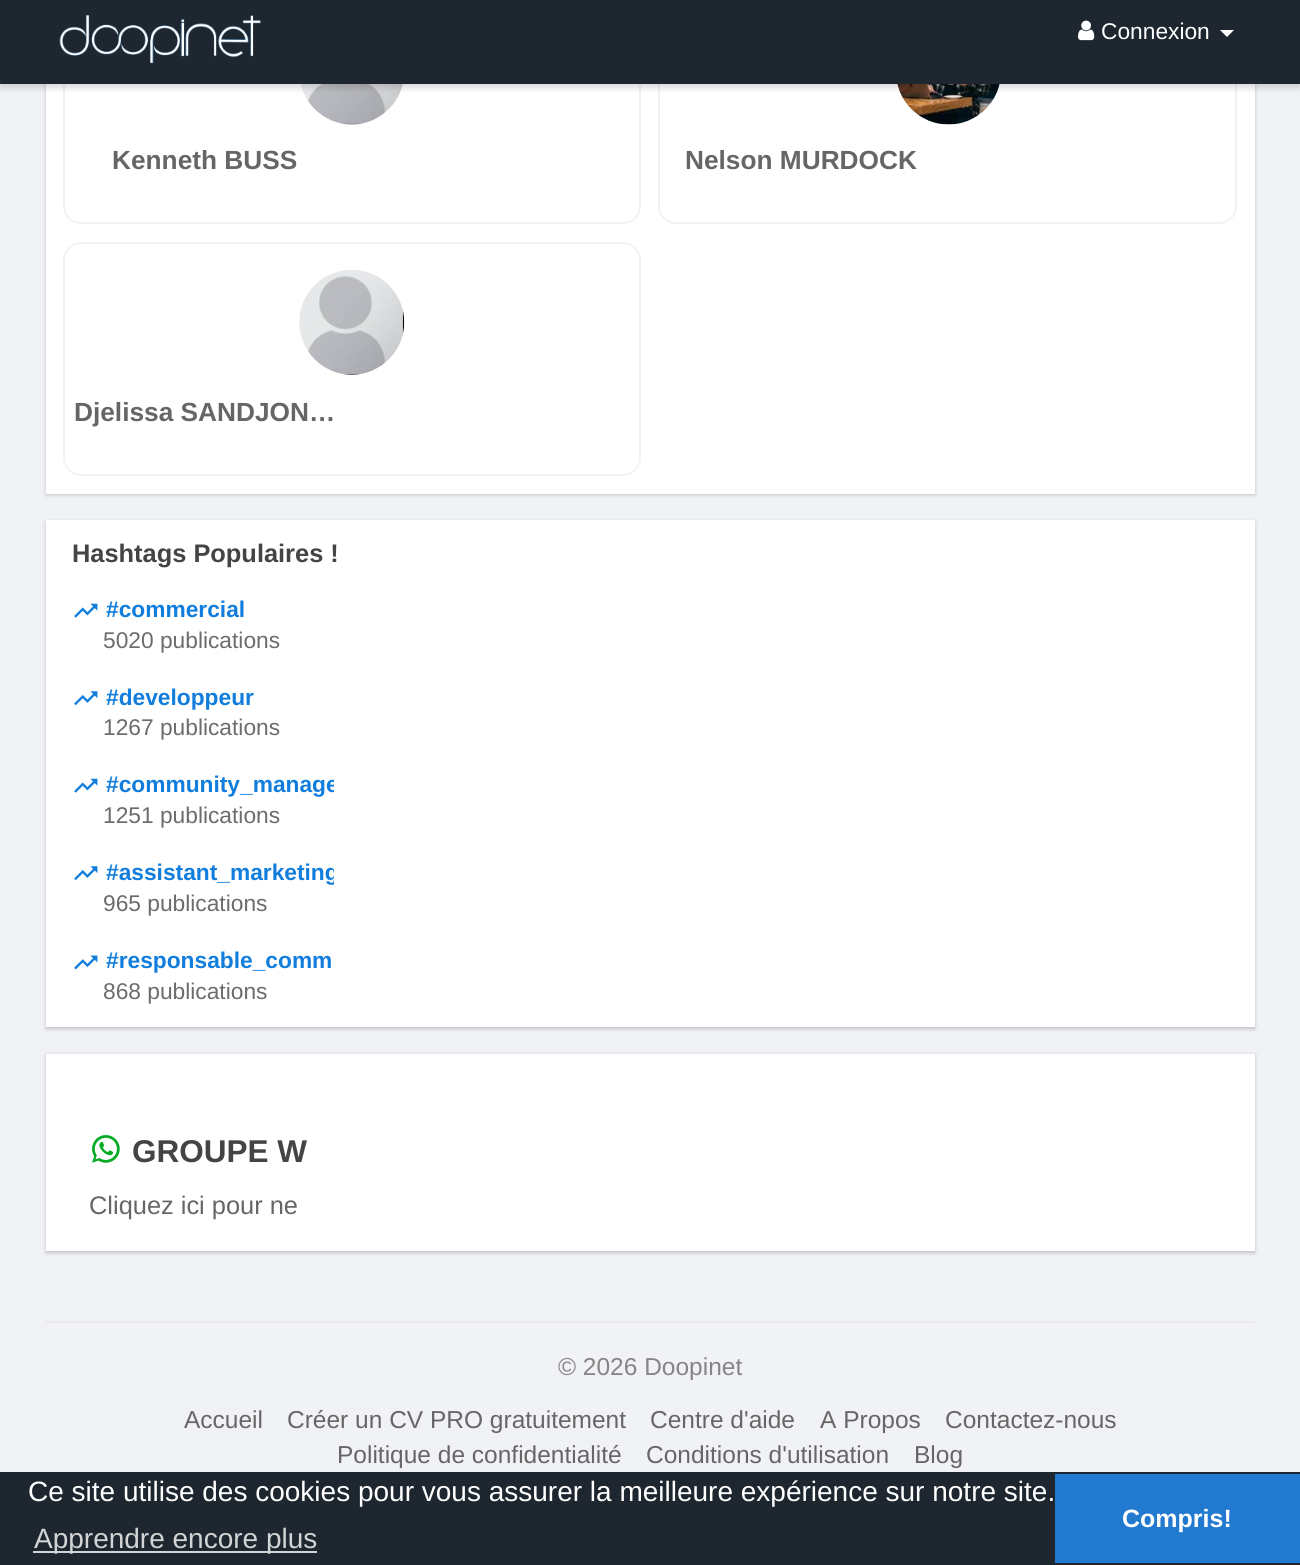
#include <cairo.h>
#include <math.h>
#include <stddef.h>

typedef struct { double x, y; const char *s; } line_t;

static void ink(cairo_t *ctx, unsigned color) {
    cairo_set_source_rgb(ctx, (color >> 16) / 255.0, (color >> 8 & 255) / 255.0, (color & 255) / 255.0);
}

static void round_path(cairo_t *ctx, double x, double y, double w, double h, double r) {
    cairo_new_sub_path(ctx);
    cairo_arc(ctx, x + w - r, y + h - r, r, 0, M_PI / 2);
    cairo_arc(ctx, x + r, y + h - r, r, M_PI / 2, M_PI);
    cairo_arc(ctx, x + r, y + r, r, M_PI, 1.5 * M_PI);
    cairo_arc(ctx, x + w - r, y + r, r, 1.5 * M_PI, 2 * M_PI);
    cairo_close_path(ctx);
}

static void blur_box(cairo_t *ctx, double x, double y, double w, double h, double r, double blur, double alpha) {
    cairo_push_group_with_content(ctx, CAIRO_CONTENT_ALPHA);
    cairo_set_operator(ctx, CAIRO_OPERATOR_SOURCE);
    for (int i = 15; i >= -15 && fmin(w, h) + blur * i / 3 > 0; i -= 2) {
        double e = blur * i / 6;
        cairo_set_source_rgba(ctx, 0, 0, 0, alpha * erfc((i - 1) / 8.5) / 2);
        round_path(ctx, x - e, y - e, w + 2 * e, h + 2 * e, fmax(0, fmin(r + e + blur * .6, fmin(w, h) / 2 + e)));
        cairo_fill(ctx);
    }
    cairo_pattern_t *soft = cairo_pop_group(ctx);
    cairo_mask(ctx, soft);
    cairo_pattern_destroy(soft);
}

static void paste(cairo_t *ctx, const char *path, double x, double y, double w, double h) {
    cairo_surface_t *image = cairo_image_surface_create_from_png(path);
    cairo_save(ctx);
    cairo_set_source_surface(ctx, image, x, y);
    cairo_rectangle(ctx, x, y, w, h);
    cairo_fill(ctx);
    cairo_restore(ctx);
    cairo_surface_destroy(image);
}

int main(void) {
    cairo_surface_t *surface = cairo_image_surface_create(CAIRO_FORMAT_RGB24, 1300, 1565);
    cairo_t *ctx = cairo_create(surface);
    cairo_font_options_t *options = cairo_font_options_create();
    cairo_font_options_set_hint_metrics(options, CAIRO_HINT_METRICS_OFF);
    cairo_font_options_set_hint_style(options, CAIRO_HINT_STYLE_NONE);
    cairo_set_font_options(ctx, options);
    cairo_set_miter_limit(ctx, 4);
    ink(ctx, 0xF0F2F5);
    cairo_paint(ctx);
    ink(ctx, 0x000000);
    blur_box(ctx, 46, -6, 1209, 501, 0, 2, 0.2);
    ink(ctx, 0xFFFFFF);
    cairo_rectangle(ctx, 46, 84, 1209, 410);
    cairo_fill(ctx);
    round_path(ctx, 64, -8, 576, 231, 17);
    ink(ctx, 0xF0F2F5);
    cairo_stroke(ctx);
    paste(ctx, "media/3.png", 300, 84, 103, 41);
    round_path(ctx, 659, -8, 577, 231, 17);
    cairo_stroke(ctx);
    paste(ctx, "media/4.png", 897, 84, 103, 41);
    ink(ctx, 0x000000);
    blur_box(ctx, 0, 4, 1300, 84, 0, 3.5, 0.15);
    ink(ctx, 0x1E272F);
    cairo_rectangle(ctx, 0, 0, 1300, 84);
    cairo_fill(ctx);
    paste(ctx, "media/1.png", 59, 15, 202, 49);
    paste(ctx, "media/2.png", 1078, 20, 17, 21);
    cairo_select_font_face(ctx, "Liberation Sans", CAIRO_FONT_SLANT_NORMAL, CAIRO_FONT_WEIGHT_NORMAL);
    cairo_set_font_size(ctx, 22.75);
    ink(ctx, 0xFFFFFF);
    cairo_move_to(ctx, 1101, 39);
    cairo_show_text(ctx, "Connexion");
    cairo_new_path(ctx);
    cairo_move_to(ctx, 1220, 30);
    cairo_line_to(ctx, 1234, 30);
    cairo_line_to(ctx, 1227, 37);
    cairo_close_path(ctx);
    cairo_fill(ctx);
    cairo_select_font_face(ctx, "Liberation Sans", CAIRO_FONT_SLANT_NORMAL, CAIRO_FONT_WEIGHT_BOLD);
    cairo_set_font_size(ctx, 26.25);
    ink(ctx, 0x666666);
    cairo_move_to(ctx, 112, 169);
    cairo_show_text(ctx, "Kenneth BUSS");
    cairo_move_to(ctx, 685, 169);
    cairo_show_text(ctx, "Nelson MURDOCK");
    round_path(ctx, 64, 243, 576, 232, 17);
    ink(ctx, 0xF0F2F5);
    cairo_stroke(ctx);
    paste(ctx, "media/5.png", 299, 270, 106, 105);
    ink(ctx, 0x666666);
    cairo_move_to(ctx, 74, 421);
    cairo_show_text(ctx, "Djelissa SANDJON…");
    ink(ctx, 0x000000);
    blur_box(ctx, 46, 522, 1209, 507, 0, 2, 0.2);
    ink(ctx, 0xFFFFFF);
    cairo_rectangle(ctx, 46, 520, 1209, 507);
    cairo_fill(ctx);
    cairo_set_font_size(ctx, 25.4);
    ink(ctx, 0x444444);
    cairo_move_to(ctx, 72, 562);
    cairo_show_text(ctx, "Hashtags Populaires !");
    paste(ctx, "media/6.png", 74, 603, 24, 15);
    cairo_set_font_size(ctx, 22.75);
    ink(ctx, 0x117DDD);
    cairo_move_to(ctx, 106, 617);
    cairo_show_text(ctx, "#commercial");
    cairo_select_font_face(ctx, "Liberation Sans", CAIRO_FONT_SLANT_NORMAL, CAIRO_FONT_WEIGHT_NORMAL);
    ink(ctx, 0x6C6C6C);
    cairo_move_to(ctx, 103, 648);
    cairo_show_text(ctx, "5020 publications");
    paste(ctx, "media/7.png", 74, 691, 24, 15);
    cairo_select_font_face(ctx, "Liberation Sans", CAIRO_FONT_SLANT_NORMAL, CAIRO_FONT_WEIGHT_BOLD);
    ink(ctx, 0x117DDD);
    cairo_move_to(ctx, 106, 705);
    cairo_show_text(ctx, "#developpeur");
    cairo_select_font_face(ctx, "Liberation Sans", CAIRO_FONT_SLANT_NORMAL, CAIRO_FONT_WEIGHT_NORMAL);
    ink(ctx, 0x6C6C6C);
    cairo_move_to(ctx, 103, 735);
    cairo_show_text(ctx, "1267 publications");
    paste(ctx, "media/6.png", 74, 778, 24, 15);
    cairo_save(ctx);
    cairo_rectangle(ctx, 72, 772, 262, 61);
    cairo_clip(ctx);
    cairo_select_font_face(ctx, "Liberation Sans", CAIRO_FONT_SLANT_NORMAL, CAIRO_FONT_WEIGHT_BOLD);
    ink(ctx, 0x117DDD);
    cairo_move_to(ctx, 106, 792);
    cairo_show_text(ctx, "#community_manage");
    cairo_restore(ctx);
    cairo_move_to(ctx, 103, 823);
    cairo_show_text(ctx, "1251 publications");
    paste(ctx, "media/7.png", 74, 866, 24, 15);
    cairo_save(ctx);
    cairo_rectangle(ctx, 72, 859, 262, 62);
    cairo_clip(ctx);
    cairo_select_font_face(ctx, "Liberation Sans", CAIRO_FONT_SLANT_NORMAL, CAIRO_FONT_WEIGHT_BOLD);
    ink(ctx, 0x117DDD);
    cairo_move_to(ctx, 106, 880);
    cairo_show_text(ctx, "#assistant_marketing");
    cairo_restore(ctx);
    cairo_move_to(ctx, 103, 911);
    cairo_show_text(ctx, "965 publications");
    paste(ctx, "media/8.png", 74, 955, 24, 15);
    cairo_select_font_face(ctx, "Liberation Sans", CAIRO_FONT_SLANT_NORMAL, CAIRO_FONT_WEIGHT_BOLD);
    ink(ctx, 0x117DDD);
    cairo_move_to(ctx, 106, 968);
    cairo_show_text(ctx, "#responsable_comm");
    cairo_select_font_face(ctx, "Liberation Sans", CAIRO_FONT_SLANT_NORMAL, CAIRO_FONT_WEIGHT_NORMAL);
    ink(ctx, 0x6C6C6C);
    cairo_move_to(ctx, 103, 999);
    cairo_show_text(ctx, "868 publications");
    ink(ctx, 0x000000);
    blur_box(ctx, 46, 1055, 1209, 198, 0, 2, 0.2);
    ink(ctx, 0xFFFFFF);
    cairo_rectangle(ctx, 46, 1054, 1209, 197);
    cairo_fill(ctx);
    paste(ctx, "media/9.png", 92, 1135, 28, 28);
    cairo_select_font_face(ctx, "Liberation Sans", CAIRO_FONT_SLANT_NORMAL, CAIRO_FONT_WEIGHT_BOLD);
    cairo_set_font_size(ctx, 31.5);
    ink(ctx, 0x444444);
    cairo_move_to(ctx, 132, 1162);
    cairo_show_text(ctx, "GROUPE W");
    cairo_select_font_face(ctx, "Liberation Sans", CAIRO_FONT_SLANT_NORMAL, CAIRO_FONT_WEIGHT_NORMAL);
    cairo_set_font_size(ctx, 25.4);
    ink(ctx, 0x666666);
    cairo_move_to(ctx, 89, 1214);
    cairo_show_text(ctx, "Cliquez ici pour ne");
    ink(ctx, 0xE9E9E9);
    cairo_rectangle(ctx, 46, 1321, 1209, 2);
    cairo_fill(ctx);
    cairo_set_font_size(ctx, 24.5);
    ink(ctx, 0x858585);
    cairo_move_to(ctx, 558, 1375);
    cairo_show_text(ctx, "© 2026 Doopinet");
    ink(ctx, 0x666666);
    {
        static const line_t items[] = {
            {184, 1428, "Accueil"},
            {287, 1428, "Créer un CV PRO gratuitement"},
            {650, 1428, "Centre d'aide"},
            {820, 1428, "A Propos"},
            {945, 1428, "Contactez-nous"},
            {337, 1463, "Politique de confidentialité"},
            {646, 1463, "Conditions d'utilisation"},
            {914, 1463, "Blog"},
        };
        for (size_t i = 0; i < sizeof items / sizeof *items; i++) {
            cairo_move_to(ctx, items[i].x, items[i].y);
            cairo_show_text(ctx, items[i].s);
        }
    }
    ink(ctx, 0x1E272F);
    cairo_rectangle(ctx, 0, 1472, 1300, 93);
    cairo_fill(ctx);
    cairo_set_font_size(ctx, 28);
    ink(ctx, 0xFFFFFF);
    cairo_move_to(ctx, 28, 1501);
    cairo_show_text(ctx, "Ce site utilise des cookies pour vous assurer la meilleure expérience sur notre site.");
    ink(ctx, 0xD2D4D5);
    cairo_rectangle(ctx, 33, 1551, 284, 2);
    cairo_fill(ctx);
    cairo_move_to(ctx, 34, 1548);
    cairo_show_text(ctx, "Apprendre encore plus");
    ink(ctx, 0x2179D0);
    cairo_rectangle(ctx, 1055, 1474, 245, 89);
    cairo_fill(ctx);
    cairo_select_font_face(ctx, "Liberation Sans", CAIRO_FONT_SLANT_NORMAL, CAIRO_FONT_WEIGHT_BOLD);
    cairo_set_font_size(ctx, 25);
    ink(ctx, 0xFFFFFF);
    cairo_move_to(ctx, 1122, 1527);
    cairo_show_text(ctx, "Compris!");
    cairo_surface_write_to_png(surface, "image.png");
    cairo_font_options_destroy(options);
    cairo_destroy(ctx);
    cairo_surface_destroy(surface);
    return 0;
}
